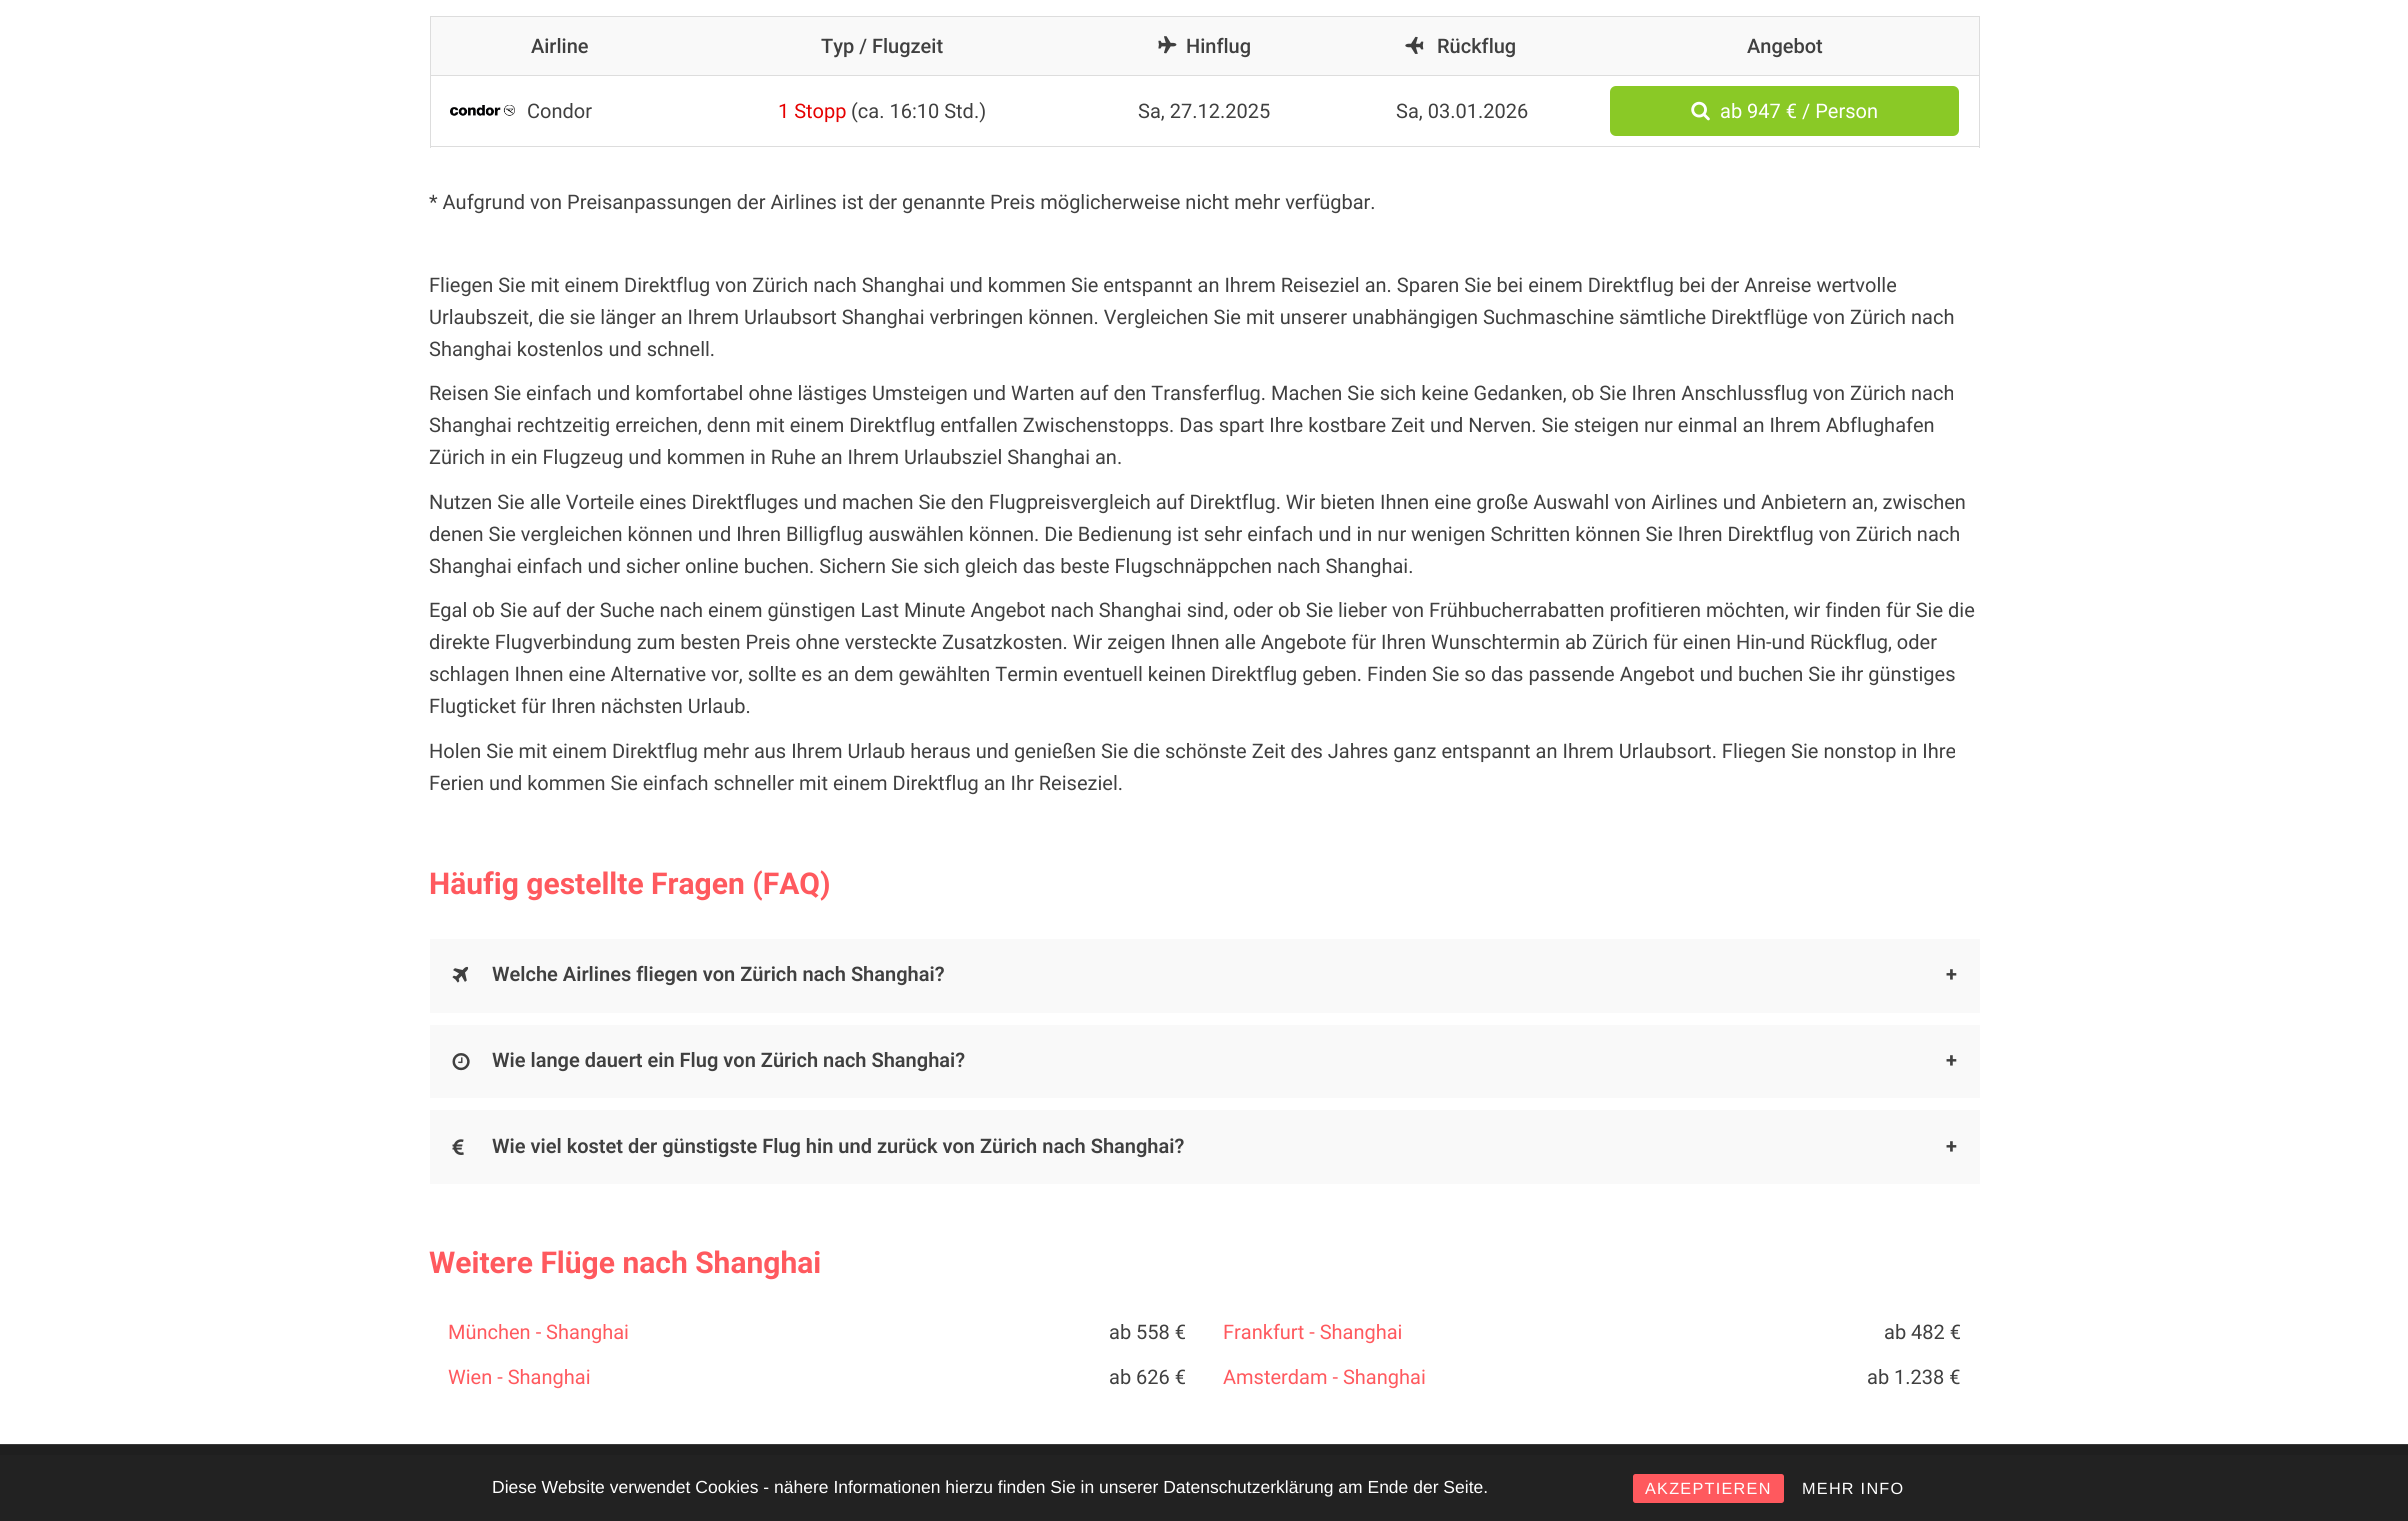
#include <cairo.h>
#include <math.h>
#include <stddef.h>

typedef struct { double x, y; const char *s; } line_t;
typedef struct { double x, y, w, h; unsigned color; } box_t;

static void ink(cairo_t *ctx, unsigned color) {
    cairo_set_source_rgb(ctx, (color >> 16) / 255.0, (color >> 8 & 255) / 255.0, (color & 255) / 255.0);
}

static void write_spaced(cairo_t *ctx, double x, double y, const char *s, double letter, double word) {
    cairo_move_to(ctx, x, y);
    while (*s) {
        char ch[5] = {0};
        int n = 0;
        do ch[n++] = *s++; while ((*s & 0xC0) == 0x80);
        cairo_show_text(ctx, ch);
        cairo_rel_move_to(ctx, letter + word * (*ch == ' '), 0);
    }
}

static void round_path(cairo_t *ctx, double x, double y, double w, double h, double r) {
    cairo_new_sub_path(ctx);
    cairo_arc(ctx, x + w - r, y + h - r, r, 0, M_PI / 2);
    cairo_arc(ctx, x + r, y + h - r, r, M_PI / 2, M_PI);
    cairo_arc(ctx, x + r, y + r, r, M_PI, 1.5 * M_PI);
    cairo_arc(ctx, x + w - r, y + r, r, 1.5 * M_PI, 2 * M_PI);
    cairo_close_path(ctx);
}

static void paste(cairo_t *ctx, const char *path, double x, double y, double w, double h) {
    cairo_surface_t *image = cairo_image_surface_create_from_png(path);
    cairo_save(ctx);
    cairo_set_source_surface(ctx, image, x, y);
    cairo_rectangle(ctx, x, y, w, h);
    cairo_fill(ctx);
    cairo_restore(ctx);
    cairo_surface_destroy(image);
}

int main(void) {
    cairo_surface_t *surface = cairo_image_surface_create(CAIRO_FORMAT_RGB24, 2408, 1521);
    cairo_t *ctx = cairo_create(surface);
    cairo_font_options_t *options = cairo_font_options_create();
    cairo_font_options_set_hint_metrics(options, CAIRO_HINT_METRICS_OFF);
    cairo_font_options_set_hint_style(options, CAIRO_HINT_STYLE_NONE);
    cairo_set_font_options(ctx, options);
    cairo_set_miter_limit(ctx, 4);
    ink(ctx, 0xFFFFFF);
    cairo_paint(ctx);
    ink(ctx, 0xF9F9F9);
    cairo_rectangle(ctx, 430.5, 16.5, 1549, 59);
    cairo_fill_preserve(ctx);
    ink(ctx, 0xDDDDDD);
    cairo_set_line_width(ctx, 1);
    cairo_stroke(ctx);
    cairo_select_font_face(ctx, "Roboto Medium", CAIRO_FONT_SLANT_NORMAL, CAIRO_FONT_WEIGHT_NORMAL);
    cairo_set_font_size(ctx, 20);
    ink(ctx, 0x404040);
    cairo_move_to(ctx, 531, 53);
    cairo_show_text(ctx, "Airline");
    cairo_move_to(ctx, 821, 53);
    cairo_show_text(ctx, "Typ / Flugzeit");
    paste(ctx, "media/1.png", 1158, 36, 19, 18);
    cairo_move_to(ctx, 1186, 53);
    cairo_show_text(ctx, "Hinflug");
    paste(ctx, "media/2.png", 1405, 36, 19, 18);
    cairo_move_to(ctx, 1437, 53);
    cairo_show_text(ctx, "Rückflug");
    cairo_move_to(ctx, 1747, 53);
    cairo_show_text(ctx, "Angebot");
    {
        static const box_t items[] = {
            {1979, 76, 1, 72, 0xDDDDDD},
            {430, 146, 1550, 1, 0xDDDDDD},
            {430, 76, 1, 72, 0xDDDDDD},
        };
        for (size_t i = 0; i < sizeof items / sizeof *items; i++) {
            ink(ctx, items[i].color);
            cairo_rectangle(ctx, items[i].x, items[i].y, items[i].w, items[i].h);
            cairo_fill(ctx);
        }
    }
    paste(ctx, "media/3.png", 450, 105, 65, 11);
    cairo_select_font_face(ctx, "Roboto", CAIRO_FONT_SLANT_NORMAL, CAIRO_FONT_WEIGHT_NORMAL);
    ink(ctx, 0x404040);
    cairo_move_to(ctx, 527, 118);
    cairo_show_text(ctx, "Condor");
    ink(ctx, 0xE60000);
    cairo_move_to(ctx, 778, 118);
    cairo_show_text(ctx, "1 Stopp");
    ink(ctx, 0x404040);
    {
        static const line_t items[] = {
            {851, 118, "(ca. 16:10 Std.)"},
            {1138, 118, "Sa, 27.12.2025"},
            {1396, 118, "Sa, 03.01.2026"},
        };
        for (size_t i = 0; i < sizeof items / sizeof *items; i++) {
            cairo_move_to(ctx, items[i].x, items[i].y);
            cairo_show_text(ctx, items[i].s);
        }
    }
    ink(ctx, 0x8AC926);
    round_path(ctx, 1610, 86, 349, 50, 6);
    cairo_fill(ctx);
    paste(ctx, "media/4.png", 1691, 101, 19, 20);
    ink(ctx, 0xFFFFFF);
    cairo_move_to(ctx, 1720, 118);
    cairo_show_text(ctx, "ab 947 € / Person");
    ink(ctx, 0x404040);
    {
        static const line_t items[] = {
            {429, 209, "* Aufgrund von Preisanpassungen der Airlines ist der genannte Preis möglicherweise nicht mehr verfügbar."},
            {429, 292, "Fliegen Sie mit einem Direktflug von Zürich nach Shanghai und kommen Sie entspannt an Ihrem Reiseziel an. Sparen Sie bei einem Direktflug bei der Anreise wertvolle"},
            {429, 324, "Urlaubszeit, die sie länger an Ihrem Urlaubsort Shanghai verbringen können. Vergleichen Sie mit unserer unabhängigen Suchmaschine sämtliche Direktflüge von Zürich nach"},
            {429, 356, "Shanghai kostenlos und schnell."},
            {429, 400, "Reisen Sie einfach und komfortabel ohne lästiges Umsteigen und Warten auf den Transferflug. Machen Sie sich keine Gedanken, ob Sie Ihren Anschlussflug von Zürich nach"},
            {429, 432, "Shanghai rechtzeitig erreichen, denn mit einem Direktflug entfallen Zwischenstopps. Das spart Ihre kostbare Zeit und Nerven. Sie steigen nur einmal an Ihrem Abflughafen"},
            {429, 464, "Zürich in ein Flugzeug und kommen in Ruhe an Ihrem Urlaubsziel Shanghai an."},
            {429, 509, "Nutzen Sie alle Vorteile eines Direktfluges und machen Sie den Flugpreisvergleich auf Direktflug. Wir bieten Ihnen eine große Auswahl von Airlines und Anbietern an, zwischen"},
            {429, 541, "denen Sie vergleichen können und Ihren Billigflug auswählen können. Die Bedienung ist sehr einfach und in nur wenigen Schritten können Sie Ihren Direktflug von Zürich nach"},
            {429, 573, "Shanghai einfach und sicher online buchen. Sichern Sie sich gleich das beste Flugschnäppchen nach Shanghai."},
            {429, 617, "Egal ob Sie auf der Suche nach einem günstigen Last Minute Angebot nach Shanghai sind, oder ob Sie lieber von Frühbucherrabatten profitieren möchten, wir finden für Sie die"},
            {429, 649, "direkte Flugverbindung zum besten Preis ohne versteckte Zusatzkosten. Wir zeigen Ihnen alle Angebote für Ihren Wunschtermin ab Zürich für einen Hin-und Rückflug, oder"},
            {429, 681, "schlagen Ihnen eine Alternative vor, sollte es an dem gewählten Termin eventuell keinen Direktflug geben. Finden Sie so das passende Angebot und buchen Sie ihr günstiges"},
            {429, 713, "Flugticket für Ihren nächsten Urlaub."},
            {429, 758, "Holen Sie mit einem Direktflug mehr aus Ihrem Urlaub heraus und genießen Sie die schönste Zeit des Jahres ganz entspannt an Ihrem Urlaubsort. Fliegen Sie nonstop in Ihre"},
            {429, 790, "Ferien und kommen Sie einfach schneller mit einem Direktflug an Ihr Reiseziel."},
        };
        for (size_t i = 0; i < sizeof items / sizeof *items; i++) {
            cairo_move_to(ctx, items[i].x, items[i].y);
            cairo_show_text(ctx, items[i].s);
        }
    }
    cairo_select_font_face(ctx, "Roboto", CAIRO_FONT_SLANT_NORMAL, CAIRO_FONT_WEIGHT_BOLD);
    cairo_set_font_size(ctx, 30);
    ink(ctx, 0xFF595E);
    cairo_move_to(ctx, 429, 894);
    cairo_show_text(ctx, "Häufig gestellte Fragen (FAQ)");
    ink(ctx, 0xF9F9F9);
    cairo_rectangle(ctx, 430, 939, 1550, 74);
    cairo_fill(ctx);
    paste(ctx, "media/5.png", 452, 966, 17, 17);
    cairo_select_font_face(ctx, "Roboto SemiBold", CAIRO_FONT_SLANT_NORMAL, CAIRO_FONT_WEIGHT_NORMAL);
    cairo_set_font_size(ctx, 20);
    ink(ctx, 0x404040);
    cairo_move_to(ctx, 492, 981);
    cairo_show_text(ctx, "Welche Airlines fliegen von Zürich nach Shanghai?");
    cairo_select_font_face(ctx, "Roboto", CAIRO_FONT_SLANT_NORMAL, CAIRO_FONT_WEIGHT_BOLD);
    cairo_move_to(ctx, 1946, 981);
    cairo_show_text(ctx, "+");
    ink(ctx, 0xF9F9F9);
    cairo_rectangle(ctx, 430, 1025, 1550, 73);
    cairo_fill(ctx);
    paste(ctx, "media/6.png", 452, 1053, 18, 18);
    cairo_select_font_face(ctx, "Roboto SemiBold", CAIRO_FONT_SLANT_NORMAL, CAIRO_FONT_WEIGHT_NORMAL);
    ink(ctx, 0x404040);
    cairo_move_to(ctx, 492, 1067);
    cairo_show_text(ctx, "Wie lange dauert ein Flug von Zürich nach Shanghai?");
    cairo_select_font_face(ctx, "Roboto", CAIRO_FONT_SLANT_NORMAL, CAIRO_FONT_WEIGHT_BOLD);
    cairo_move_to(ctx, 1946, 1067);
    cairo_show_text(ctx, "+");
    ink(ctx, 0xF9F9F9);
    cairo_rectangle(ctx, 430, 1110, 1550, 74);
    cairo_fill(ctx);
    paste(ctx, "media/7.png", 452, 1139, 12, 16);
    cairo_select_font_face(ctx, "Roboto SemiBold", CAIRO_FONT_SLANT_NORMAL, CAIRO_FONT_WEIGHT_NORMAL);
    ink(ctx, 0x404040);
    cairo_move_to(ctx, 492, 1153);
    cairo_show_text(ctx, "Wie viel kostet der günstigste Flug hin und zurück von Zürich nach Shanghai?");
    cairo_select_font_face(ctx, "Roboto", CAIRO_FONT_SLANT_NORMAL, CAIRO_FONT_WEIGHT_BOLD);
    cairo_move_to(ctx, 1946, 1153);
    cairo_show_text(ctx, "+");
    cairo_set_font_size(ctx, 30);
    ink(ctx, 0xFF595E);
    cairo_move_to(ctx, 429, 1273);
    cairo_show_text(ctx, "Weitere Flüge nach Shanghai");
    cairo_select_font_face(ctx, "Roboto", CAIRO_FONT_SLANT_NORMAL, CAIRO_FONT_WEIGHT_NORMAL);
    cairo_set_font_size(ctx, 20);
    cairo_move_to(ctx, 448, 1339);
    cairo_show_text(ctx, "München - Shanghai");
    ink(ctx, 0x404040);
    cairo_move_to(ctx, 1109, 1339);
    cairo_show_text(ctx, "ab 558 €");
    ink(ctx, 0xFF595E);
    cairo_move_to(ctx, 1223, 1339);
    cairo_show_text(ctx, "Frankfurt - Shanghai");
    ink(ctx, 0x404040);
    cairo_move_to(ctx, 1884, 1339);
    cairo_show_text(ctx, "ab 482 €");
    ink(ctx, 0xFF595E);
    cairo_move_to(ctx, 448, 1384);
    cairo_show_text(ctx, "Wien - Shanghai");
    ink(ctx, 0x404040);
    cairo_move_to(ctx, 1109, 1384);
    cairo_show_text(ctx, "ab 626 €");
    ink(ctx, 0xFF595E);
    cairo_move_to(ctx, 1223, 1384);
    cairo_show_text(ctx, "Amsterdam - Shanghai");
    ink(ctx, 0x404040);
    cairo_move_to(ctx, 1867, 1384);
    cairo_show_text(ctx, "ab 1.238 €");
    {
        static const box_t items[] = {
            {0, 1445, 2408, 10, 0x1F1F1F},
            {0, 1444, 2408, 1, 0x3A3A3A},
            {0, 1455, 2408, 66, 0x222222},
        };
        for (size_t i = 0; i < sizeof items / sizeof *items; i++) {
            ink(ctx, items[i].color);
            cairo_rectangle(ctx, items[i].x, items[i].y, items[i].w, items[i].h);
            cairo_fill(ctx);
        }
    }
    cairo_select_font_face(ctx, "Liberation Sans", CAIRO_FONT_SLANT_NORMAL, CAIRO_FONT_WEIGHT_NORMAL);
    cairo_set_font_size(ctx, 17.5);
    ink(ctx, 0xFFFFFF);
    cairo_move_to(ctx, 492, 1493);
    cairo_show_text(ctx, "Diese Website verwendet Cookies - nähere Informationen hierzu finden Sie in unserer Datenschutzerklärung am Ende der Seite.");
    ink(ctx, 0xFF595E);
    round_path(ctx, 1633, 1474, 151, 29, 2.5);
    cairo_fill(ctx);
    cairo_set_font_size(ctx, 16.25);
    ink(ctx, 0xFFFFFF);
    write_spaced(ctx, 1645, 1494, "AKZEPTIEREN", 1.25, 0);
    write_spaced(ctx, 1802, 1494, "MEHR INFO", 1.25, 0);
    cairo_surface_write_to_png(surface, "image.png");
    cairo_font_options_destroy(options);
    cairo_destroy(ctx);
    cairo_surface_destroy(surface);
    return 0;
}
